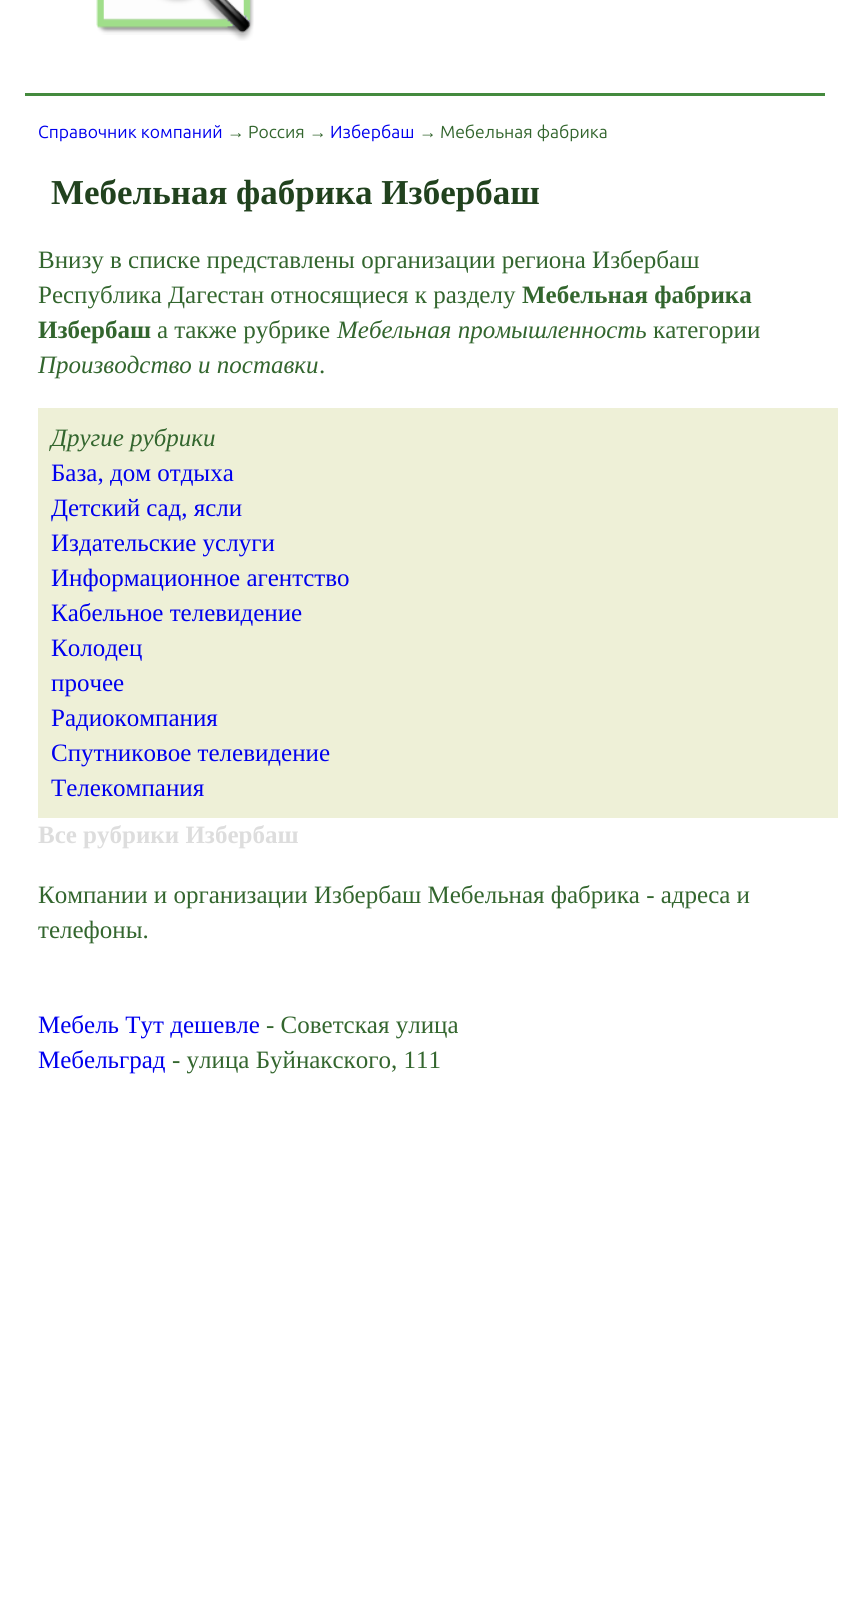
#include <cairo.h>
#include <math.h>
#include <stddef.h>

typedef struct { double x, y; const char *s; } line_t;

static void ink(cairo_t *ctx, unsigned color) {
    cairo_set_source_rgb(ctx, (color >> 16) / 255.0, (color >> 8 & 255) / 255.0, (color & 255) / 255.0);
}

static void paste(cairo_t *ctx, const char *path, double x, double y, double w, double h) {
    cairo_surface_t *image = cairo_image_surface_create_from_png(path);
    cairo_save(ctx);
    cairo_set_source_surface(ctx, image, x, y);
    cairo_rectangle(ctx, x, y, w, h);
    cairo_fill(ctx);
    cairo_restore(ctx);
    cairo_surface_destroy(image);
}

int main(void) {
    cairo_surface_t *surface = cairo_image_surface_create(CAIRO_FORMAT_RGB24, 849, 1608);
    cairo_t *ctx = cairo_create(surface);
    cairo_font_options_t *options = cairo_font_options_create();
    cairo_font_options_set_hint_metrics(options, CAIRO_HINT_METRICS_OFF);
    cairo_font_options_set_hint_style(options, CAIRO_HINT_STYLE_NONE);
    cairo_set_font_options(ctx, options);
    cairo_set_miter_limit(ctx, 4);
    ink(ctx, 0xFFFFFF);
    cairo_paint(ctx);
    ink(ctx, 0x448A3E);
    cairo_rectangle(ctx, 25, 93, 800, 3);
    cairo_fill(ctx);
    paste(ctx, "media/1.png", 96, 0, 158, 41);
    cairo_select_font_face(ctx, "Ubuntu", CAIRO_FONT_SLANT_NORMAL, CAIRO_FONT_WEIGHT_NORMAL);
    cairo_set_font_size(ctx, 17.5);
    ink(ctx, 0x0000EE);
    cairo_move_to(ctx, 38, 138);
    cairo_show_text(ctx, "Справочник компаний");
    cairo_select_font_face(ctx, "Liberation Sans", CAIRO_FONT_SLANT_NORMAL, CAIRO_FONT_WEIGHT_NORMAL);
    ink(ctx, 0x33662E);
    cairo_move_to(ctx, 227, 138);
    cairo_show_text(ctx, "→");
    cairo_select_font_face(ctx, "Ubuntu", CAIRO_FONT_SLANT_NORMAL, CAIRO_FONT_WEIGHT_NORMAL);
    cairo_move_to(ctx, 248, 138);
    cairo_show_text(ctx, "Россия");
    cairo_select_font_face(ctx, "Liberation Sans", CAIRO_FONT_SLANT_NORMAL, CAIRO_FONT_WEIGHT_NORMAL);
    cairo_move_to(ctx, 309, 138);
    cairo_show_text(ctx, "→");
    cairo_select_font_face(ctx, "Ubuntu", CAIRO_FONT_SLANT_NORMAL, CAIRO_FONT_WEIGHT_NORMAL);
    ink(ctx, 0x0000EE);
    cairo_move_to(ctx, 330, 138);
    cairo_show_text(ctx, "Избербаш");
    cairo_select_font_face(ctx, "Liberation Sans", CAIRO_FONT_SLANT_NORMAL, CAIRO_FONT_WEIGHT_NORMAL);
    ink(ctx, 0x33662E);
    cairo_move_to(ctx, 419, 138);
    cairo_show_text(ctx, "→");
    cairo_select_font_face(ctx, "Ubuntu", CAIRO_FONT_SLANT_NORMAL, CAIRO_FONT_WEIGHT_NORMAL);
    cairo_move_to(ctx, 440, 138);
    cairo_show_text(ctx, "Мебельная фабрика");
    cairo_select_font_face(ctx, "Liberation Serif", CAIRO_FONT_SLANT_NORMAL, CAIRO_FONT_WEIGHT_BOLD);
    cairo_set_font_size(ctx, 35);
    ink(ctx, 0x21421E);
    cairo_move_to(ctx, 51, 204);
    cairo_show_text(ctx, "Мебельная фабрика Избербаш");
    cairo_select_font_face(ctx, "Liberation Serif", CAIRO_FONT_SLANT_NORMAL, CAIRO_FONT_WEIGHT_NORMAL);
    cairo_set_font_size(ctx, 25);
    ink(ctx, 0x33662E);
    cairo_move_to(ctx, 38, 268);
    cairo_show_text(ctx, "Внизу в списке представлены организации региона Избербаш");
    cairo_move_to(ctx, 38, 303);
    cairo_show_text(ctx, "Республика Дагестан относящиеся к разделу");
    cairo_select_font_face(ctx, "Liberation Serif", CAIRO_FONT_SLANT_NORMAL, CAIRO_FONT_WEIGHT_BOLD);
    cairo_move_to(ctx, 522, 303);
    cairo_show_text(ctx, "Мебельная фабрика");
    cairo_move_to(ctx, 38, 338);
    cairo_show_text(ctx, "Избербаш");
    cairo_select_font_face(ctx, "Liberation Serif", CAIRO_FONT_SLANT_NORMAL, CAIRO_FONT_WEIGHT_NORMAL);
    cairo_move_to(ctx, 157, 338);
    cairo_show_text(ctx, "а также рубрике");
    cairo_select_font_face(ctx, "Liberation Serif", CAIRO_FONT_SLANT_ITALIC, CAIRO_FONT_WEIGHT_NORMAL);
    cairo_move_to(ctx, 337, 338);
    cairo_show_text(ctx, "Мебельная промышленность");
    cairo_select_font_face(ctx, "Liberation Serif", CAIRO_FONT_SLANT_NORMAL, CAIRO_FONT_WEIGHT_NORMAL);
    cairo_move_to(ctx, 653, 338);
    cairo_show_text(ctx, "категории");
    cairo_select_font_face(ctx, "Liberation Serif", CAIRO_FONT_SLANT_ITALIC, CAIRO_FONT_WEIGHT_NORMAL);
    cairo_move_to(ctx, 38, 373);
    cairo_show_text(ctx, "Производство и поставки");
    cairo_select_font_face(ctx, "Liberation Serif", CAIRO_FONT_SLANT_NORMAL, CAIRO_FONT_WEIGHT_NORMAL);
    cairo_move_to(ctx, 319, 373);
    cairo_show_text(ctx, ".");
    ink(ctx, 0xEEF0D7);
    cairo_rectangle(ctx, 38, 408, 800, 410);
    cairo_fill(ctx);
    cairo_select_font_face(ctx, "Liberation Serif", CAIRO_FONT_SLANT_ITALIC, CAIRO_FONT_WEIGHT_NORMAL);
    ink(ctx, 0x33662E);
    cairo_move_to(ctx, 51, 446);
    cairo_show_text(ctx, "Другие рубрики");
    cairo_select_font_face(ctx, "Liberation Serif", CAIRO_FONT_SLANT_NORMAL, CAIRO_FONT_WEIGHT_NORMAL);
    ink(ctx, 0x0000EE);
    {
        static const line_t items[] = {
            {51, 481, "База, дом отдыха"},
            {51, 516, "Детский сад, ясли"},
            {51, 551, "Издательские услуги"},
            {51, 586, "Информационное агентство"},
            {51, 621, "Кабельное телевидение"},
            {51, 656, "Колодец"},
            {51, 691, "прочее"},
            {51, 726, "Радиокомпания"},
            {51, 761, "Спутниковое телевидение"},
            {51, 796, "Телекомпания"},
        };
        for (size_t i = 0; i < sizeof items / sizeof *items; i++) {
            cairo_move_to(ctx, items[i].x, items[i].y);
            cairo_show_text(ctx, items[i].s);
        }
    }
    cairo_select_font_face(ctx, "Liberation Serif", CAIRO_FONT_SLANT_NORMAL, CAIRO_FONT_WEIGHT_BOLD);
    ink(ctx, 0xDDDDDD);
    cairo_move_to(ctx, 38, 843);
    cairo_show_text(ctx, "Все рубрики Избербаш");
    cairo_select_font_face(ctx, "Liberation Serif", CAIRO_FONT_SLANT_NORMAL, CAIRO_FONT_WEIGHT_NORMAL);
    ink(ctx, 0x33662E);
    cairo_move_to(ctx, 38, 903);
    cairo_show_text(ctx, "Компании и организации Избербаш Мебельная фабрика - адреса и");
    cairo_move_to(ctx, 38, 938);
    cairo_show_text(ctx, "телефоны.");
    ink(ctx, 0x0000EE);
    cairo_move_to(ctx, 38, 1033);
    cairo_show_text(ctx, "Мебель Тут дешевле");
    ink(ctx, 0x33662E);
    cairo_move_to(ctx, 266, 1033);
    cairo_show_text(ctx, "- Советская улица");
    ink(ctx, 0x0000EE);
    cairo_move_to(ctx, 38, 1068);
    cairo_show_text(ctx, "Мебельград");
    ink(ctx, 0x33662E);
    cairo_move_to(ctx, 172, 1068);
    cairo_show_text(ctx, "- улица Буйнакского, 111");
    cairo_surface_write_to_png(surface, "image.png");
    cairo_font_options_destroy(options);
    cairo_destroy(ctx);
    cairo_surface_destroy(surface);
    return 0;
}
